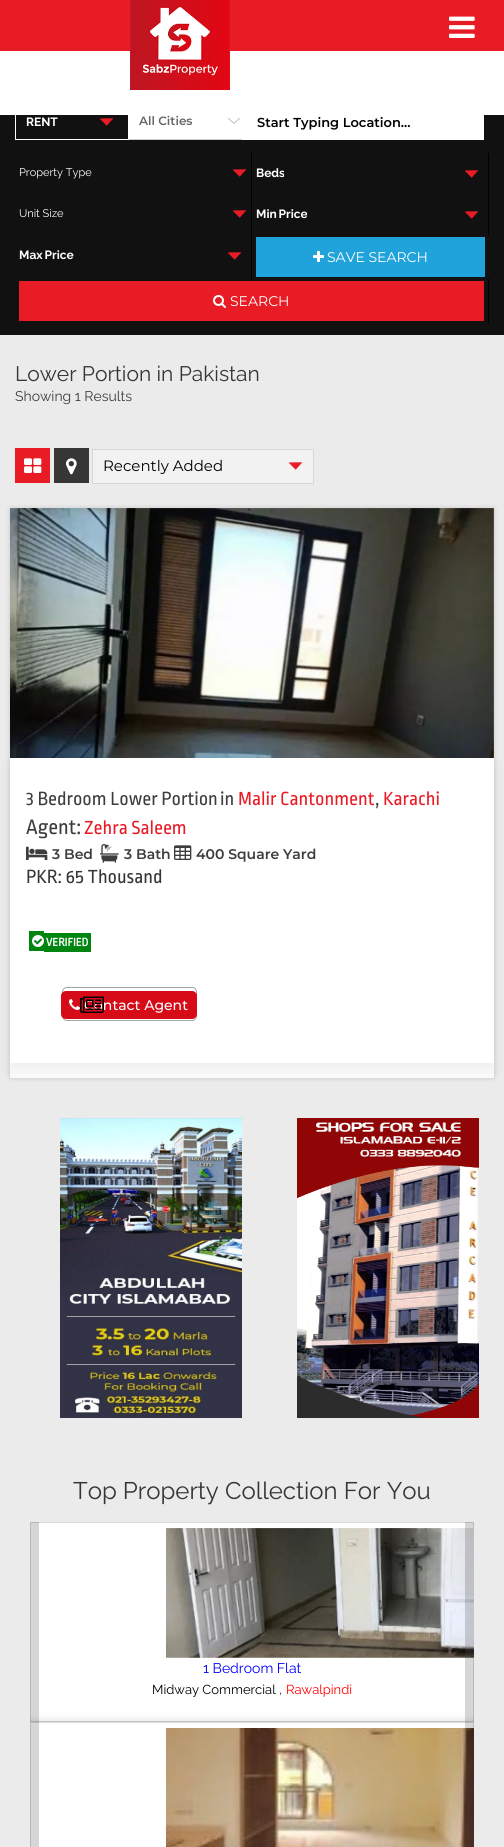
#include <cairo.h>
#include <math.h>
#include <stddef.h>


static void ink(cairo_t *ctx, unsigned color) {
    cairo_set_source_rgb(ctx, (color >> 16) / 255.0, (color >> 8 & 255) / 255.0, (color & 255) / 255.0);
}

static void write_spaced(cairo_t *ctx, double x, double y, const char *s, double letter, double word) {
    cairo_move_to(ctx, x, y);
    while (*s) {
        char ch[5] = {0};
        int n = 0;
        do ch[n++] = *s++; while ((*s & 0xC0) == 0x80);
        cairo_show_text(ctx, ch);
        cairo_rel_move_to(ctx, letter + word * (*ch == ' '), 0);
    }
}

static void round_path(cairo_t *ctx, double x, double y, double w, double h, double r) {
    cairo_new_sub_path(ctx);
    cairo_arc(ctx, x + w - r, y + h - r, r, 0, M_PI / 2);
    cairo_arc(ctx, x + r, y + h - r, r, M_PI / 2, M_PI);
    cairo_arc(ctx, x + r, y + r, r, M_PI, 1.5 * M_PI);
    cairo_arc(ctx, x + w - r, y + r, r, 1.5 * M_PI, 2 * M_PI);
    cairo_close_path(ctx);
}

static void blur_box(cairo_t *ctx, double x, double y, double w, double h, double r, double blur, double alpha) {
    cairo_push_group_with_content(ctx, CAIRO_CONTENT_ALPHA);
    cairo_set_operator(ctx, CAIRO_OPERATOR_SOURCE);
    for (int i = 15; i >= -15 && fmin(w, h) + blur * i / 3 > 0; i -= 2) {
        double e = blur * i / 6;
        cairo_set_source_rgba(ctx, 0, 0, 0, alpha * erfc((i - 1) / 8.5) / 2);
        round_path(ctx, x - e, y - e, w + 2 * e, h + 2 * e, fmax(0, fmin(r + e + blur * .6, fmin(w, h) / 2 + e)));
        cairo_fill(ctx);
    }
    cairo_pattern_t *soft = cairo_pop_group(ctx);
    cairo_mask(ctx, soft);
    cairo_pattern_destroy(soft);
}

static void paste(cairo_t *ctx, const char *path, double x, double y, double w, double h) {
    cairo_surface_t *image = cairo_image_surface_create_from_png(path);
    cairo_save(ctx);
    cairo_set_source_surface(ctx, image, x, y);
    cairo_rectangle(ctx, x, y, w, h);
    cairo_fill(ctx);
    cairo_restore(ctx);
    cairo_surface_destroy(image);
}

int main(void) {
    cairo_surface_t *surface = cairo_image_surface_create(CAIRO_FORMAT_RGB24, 504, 1847);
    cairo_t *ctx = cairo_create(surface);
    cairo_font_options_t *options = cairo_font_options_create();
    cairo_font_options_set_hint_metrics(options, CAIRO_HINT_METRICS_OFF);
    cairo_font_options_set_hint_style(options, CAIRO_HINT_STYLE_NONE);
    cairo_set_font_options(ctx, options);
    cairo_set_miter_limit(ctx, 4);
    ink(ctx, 0xEBEBEB);
    cairo_paint(ctx);
    ink(ctx, 0x111111);
    cairo_rectangle(ctx, 0, 115, 504, 220);
    cairo_fill(ctx);
    cairo_rectangle(ctx, 15.5, 103.5, 113, 36);
    ink(ctx, 0xFFFFFF);
    cairo_set_line_width(ctx, 1);
    cairo_stroke(ctx);
    cairo_rectangle(ctx, 0, 51, 504, 64);
    cairo_fill(ctx);
    ink(ctx, 0xE91C26);
    cairo_rectangle(ctx, 0, 0, 504, 51);
    cairo_fill(ctx);
    paste(ctx, "media/1.png", 449, 16, 26, 22);
    paste(ctx, "media/2.png", 130, 0, 100, 90);
    cairo_select_font_face(ctx, "Raleway", CAIRO_FONT_SLANT_NORMAL, CAIRO_FONT_WEIGHT_BOLD);
    cairo_set_font_size(ctx, 12);
    ink(ctx, 0xFFFFFF);
    cairo_move_to(ctx, 26, 126);
    cairo_show_text(ctx, "RENT");
    paste(ctx, "media/3.png", 100, 118, 13, 8);
    cairo_rectangle(ctx, 129, 115, 113, 24);
    cairo_fill(ctx);
    paste(ctx, "media/4.png", 228, 118, 12, 6);
    ink(ctx, 0xCCCCCC);
    cairo_rectangle(ctx, 129, 139, 113, 1);
    cairo_fill(ctx);
    cairo_select_font_face(ctx, "Montserrat SemiBold", CAIRO_FONT_SLANT_NORMAL, CAIRO_FONT_WEIGHT_NORMAL);
    ink(ctx, 0x666666);
    cairo_move_to(ctx, 139, 125);
    cairo_show_text(ctx, "All Cities");
    ink(ctx, 0xFFFFFF);
    cairo_rectangle(ctx, 242, 115, 242, 25);
    cairo_fill(ctx);
    cairo_set_font_size(ctx, 13);
    ink(ctx, 0x000000);
    cairo_move_to(ctx, 257, 127);
    cairo_show_text(ctx, "Start Typing Location...");
    cairo_rectangle(ctx, 251, 153, 1, 41);
    cairo_fill(ctx);
    paste(ctx, "media/5.png", 232, 169, 15, 8);
    cairo_select_font_face(ctx, "Raleway", CAIRO_FONT_SLANT_NORMAL, CAIRO_FONT_WEIGHT_NORMAL);
    cairo_set_font_size(ctx, 11);
    ink(ctx, 0xFFFFFF);
    cairo_move_to(ctx, 19, 176);
    cairo_show_text(ctx, "Property Type");
    ink(ctx, 0x000000);
    cairo_rectangle(ctx, 488, 153, 1, 82);
    cairo_fill(ctx);
    cairo_save(ctx);
    cairo_rectangle(ctx, 256, 155, 28, 37);
    cairo_clip(ctx);
    cairo_select_font_face(ctx, "Raleway", CAIRO_FONT_SLANT_NORMAL, CAIRO_FONT_WEIGHT_BOLD);
    cairo_set_font_size(ctx, 12);
    ink(ctx, 0xFFFFFF);
    cairo_move_to(ctx, 256, 177);
    cairo_show_text(ctx, "Beds");
    cairo_restore(ctx);
    paste(ctx, "media/3.png", 465, 170, 13, 8);
    paste(ctx, "media/5.png", 232, 210, 15, 8);
    ink(ctx, 0xFFFFFF);
    cairo_move_to(ctx, 19, 217);
    cairo_show_text(ctx, "Unit Size");
    cairo_save(ctx);
    cairo_rectangle(ctx, 256, 196, 51, 37);
    cairo_clip(ctx);
    cairo_select_font_face(ctx, "Raleway", CAIRO_FONT_SLANT_NORMAL, CAIRO_FONT_WEIGHT_BOLD);
    cairo_set_font_size(ctx, 12);
    write_spaced(ctx, 256, 218, "Min Price", 0, -1);
    cairo_restore(ctx);
    paste(ctx, "media/3.png", 465, 211, 13, 8);
    ink(ctx, 0x000000);
    cairo_rectangle(ctx, 251, 194, 1, 85);
    cairo_fill(ctx);
    cairo_save(ctx);
    cairo_rectangle(ctx, 19, 237, 54, 37);
    cairo_clip(ctx);
    cairo_select_font_face(ctx, "Raleway", CAIRO_FONT_SLANT_NORMAL, CAIRO_FONT_WEIGHT_BOLD);
    cairo_set_font_size(ctx, 12);
    ink(ctx, 0xFFFFFF);
    write_spaced(ctx, 19, 259, "Max Price", 0, -1);
    cairo_restore(ctx);
    paste(ctx, "media/3.png", 228, 252, 13, 8);
    ink(ctx, 0x20A2DA);
    cairo_rectangle(ctx, 256, 237, 229, 40);
    cairo_fill(ctx);
    paste(ctx, "media/6.png", 313, 251, 11, 11);
    cairo_select_font_face(ctx, "Montserrat", CAIRO_FONT_SLANT_NORMAL, CAIRO_FONT_WEIGHT_NORMAL);
    cairo_set_font_size(ctx, 14);
    ink(ctx, 0xFFFFFF);
    cairo_move_to(ctx, 327, 262);
    cairo_show_text(ctx, "SAVE SEARCH");
    ink(ctx, 0x000000);
    cairo_rectangle(ctx, 488, 279, 1, 44);
    cairo_fill(ctx);
    ink(ctx, 0xE91C26);
    cairo_rectangle(ctx, 19, 281, 465, 40);
    cairo_fill(ctx);
    paste(ctx, "media/7.png", 213, 295, 13, 13);
    ink(ctx, 0xFFFFFF);
    cairo_move_to(ctx, 230, 306);
    cairo_show_text(ctx, "SEARCH");
    cairo_select_font_face(ctx, "Raleway", CAIRO_FONT_SLANT_NORMAL, CAIRO_FONT_WEIGHT_NORMAL);
    cairo_set_font_size(ctx, 21);
    ink(ctx, 0x363636);
    cairo_move_to(ctx, 15, 381);
    cairo_show_text(ctx, "Lower Portion in Pakistan");
    cairo_set_font_size(ctx, 14);
    ink(ctx, 0x3D3D3D);
    cairo_move_to(ctx, 15, 401);
    cairo_show_text(ctx, "Showing 1 Results");
    ink(ctx, 0xE91C26);
    cairo_rectangle(ctx, 15, 448, 35, 35);
    cairo_fill(ctx);
    paste(ctx, "media/8.png", 24, 458, 18, 15);
    ink(ctx, 0x363636);
    cairo_rectangle(ctx, 54, 448, 35, 35);
    cairo_fill(ctx);
    paste(ctx, "media/9.png", 66, 458, 11, 17);
    ink(ctx, 0xF2F2F2);
    cairo_rectangle(ctx, 93, 450, 220, 33);
    cairo_fill(ctx);
    paste(ctx, "media/10.png", 288, 462, 15, 8);
    cairo_rectangle(ctx, 92.5, 449.5, 221, 34);
    ink(ctx, 0xD7D7D7);
    cairo_stroke(ctx);
    cairo_select_font_face(ctx, "Montserrat", CAIRO_FONT_SLANT_NORMAL, CAIRO_FONT_WEIGHT_NORMAL);
    cairo_set_font_size(ctx, 15);
    ink(ctx, 0x000000);
    cairo_move_to(ctx, 103, 471);
    cairo_show_text(ctx, "Recently Added");
    ink(ctx, 0x000000);
    blur_box(ctx, 10, 508, 484, 570, 0, 2.5, 0.15);
    ink(ctx, 0xFCFCFC);
    cairo_rectangle(ctx, 10, 508, 484, 570);
    cairo_fill(ctx);
    paste(ctx, "media/11.png", 10, 508, 484, 250);
    ink(ctx, 0x000000);
    blur_box(ctx, 10, 765, 484, 305, 0, 7, 0.06);
    ink(ctx, 0xFFFFFF);
    cairo_rectangle(ctx, 10, 758, 484, 305);
    cairo_fill(ctx);
    cairo_select_font_face(ctx, "Ropa Sans", CAIRO_FONT_SLANT_NORMAL, CAIRO_FONT_WEIGHT_NORMAL);
    cairo_set_font_size(ctx, 20);
    ink(ctx, 0x3D3D3D);
    cairo_move_to(ctx, 26, 805);
    cairo_show_text(ctx, "3 Bedroom Lower Portion");
    cairo_move_to(ctx, 220, 805);
    cairo_show_text(ctx, "in");
    ink(ctx, 0xE91C26);
    cairo_move_to(ctx, 238, 805);
    cairo_show_text(ctx, "Malir Cantonment");
    ink(ctx, 0x3D3D3D);
    cairo_move_to(ctx, 375, 805);
    cairo_show_text(ctx, ",");
    ink(ctx, 0xE91C26);
    cairo_move_to(ctx, 383, 805);
    cairo_show_text(ctx, "Karachi");
    cairo_set_font_size(ctx, 22);
    ink(ctx, 0x3D3D3D);
    cairo_move_to(ctx, 26, 834);
    cairo_show_text(ctx, "Agent:");
    cairo_set_font_size(ctx, 20);
    ink(ctx, 0xE91C26);
    cairo_move_to(ctx, 84, 834);
    cairo_show_text(ctx, "Zehra Saleem");
    paste(ctx, "media/12.png", 26, 846, 22, 14);
    cairo_select_font_face(ctx, "Montserrat SemiBold", CAIRO_FONT_SLANT_NORMAL, CAIRO_FONT_WEIGHT_NORMAL);
    cairo_set_font_size(ctx, 14);
    ink(ctx, 0x3D3D3D);
    cairo_move_to(ctx, 52, 859);
    cairo_show_text(ctx, "3 Bed");
    paste(ctx, "media/13.png", 100, 844, 19, 19);
    cairo_move_to(ctx, 124, 859);
    cairo_show_text(ctx, "3 Bath");
    paste(ctx, "media/14.png", 174, 845, 18, 15);
    cairo_move_to(ctx, 196, 859);
    cairo_show_text(ctx, "400 Square Yard");
    cairo_select_font_face(ctx, "Ropa Sans", CAIRO_FONT_SLANT_NORMAL, CAIRO_FONT_WEIGHT_NORMAL);
    cairo_set_font_size(ctx, 20);
    ink(ctx, 0x363636);
    cairo_move_to(ctx, 26, 883);
    cairo_show_text(ctx, "PKR: 65 Thousand");
    ink(ctx, 0x008610);
    cairo_rectangle(ctx, 29, 931, 15, 20);
    cairo_fill(ctx);
    cairo_rectangle(ctx, 44, 933, 47, 19);
    cairo_fill(ctx);
    paste(ctx, "media/15.png", 32, 935, 12, 12);
    cairo_select_font_face(ctx, "Ropa Sans", CAIRO_FONT_SLANT_NORMAL, CAIRO_FONT_WEIGHT_BOLD);
    cairo_set_font_size(ctx, 12);
    ink(ctx, 0xFFFFFF);
    cairo_move_to(ctx, 46, 946);
    cairo_show_text(ctx, "VERIFIED");
    round_path(ctx, 62.5, 987.5, 134, 33, 4.5);
    ink(ctx, 0xA5A5A5);
    cairo_stroke(ctx);
    ink(ctx, 0xD70B18);
    round_path(ctx, 61, 991, 136, 28, 5);
    cairo_fill(ctx);
    cairo_select_font_face(ctx, "Montserrat Medium", CAIRO_FONT_SLANT_NORMAL, CAIRO_FONT_WEIGHT_NORMAL);
    cairo_set_font_size(ctx, 14);
    ink(ctx, 0xFFFFFF);
    cairo_move_to(ctx, 84, 1010);
    cairo_show_text(ctx, "Contact Agent");
    paste(ctx, "media/16.png", 80, 996, 24, 17);
    paste(ctx, "media/17.png", 69, 999, 11, 11);
    paste(ctx, "media/18.png", 60, 1118, 182, 300);
    paste(ctx, "media/19.png", 297, 1118, 182, 300);
    cairo_select_font_face(ctx, "Raleway", CAIRO_FONT_SLANT_NORMAL, CAIRO_FONT_WEIGHT_NORMAL);
    cairo_set_font_size(ctx, 24);
    ink(ctx, 0x363636);
    cairo_move_to(ctx, 73, 1499);
    cairo_show_text(ctx, "Top Property Collection For You");
    ink(ctx, 0xFFFFFF);
    cairo_rectangle(ctx, 30.5, 1522.5, 443, 199);
    cairo_fill_preserve(ctx);
    ink(ctx, 0xDADADA);
    cairo_stroke(ctx);
    cairo_save(ctx);
    cairo_rectangle(ctx, 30, 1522, 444, 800);
    cairo_clip(ctx);
    ink(ctx, 0x000000);
    blur_box(ctx, 30, 1722, 444, 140, 0, 5, 0.2);
    cairo_restore(ctx);
    ink(ctx, 0xFFFFFF);
    cairo_rectangle(ctx, 30.5, 1722.5, 443, 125);
    cairo_fill_preserve(ctx);
    ink(ctx, 0xDADADA);
    cairo_stroke(ctx);
    cairo_set_source_rgba(ctx, 0.302, 0.302, 0.302, 0.23);
    cairo_rectangle(ctx, 30, 1522, 9, 325);
    cairo_fill(ctx);
    paste(ctx, "media/20.png", 166, 1528, 308, 130);
    cairo_set_font_size(ctx, 14);
    ink(ctx, 0x0000FF);
    cairo_move_to(ctx, 203, 1673);
    cairo_show_text(ctx, "1 Bedroom Flat");
    cairo_set_font_size(ctx, 13);
    ink(ctx, 0x000000);
    cairo_move_to(ctx, 152, 1694);
    cairo_show_text(ctx, "Midway Commercial");
    cairo_set_font_size(ctx, 14);
    ink(ctx, 0x3D3D3D);
    cairo_move_to(ctx, 279, 1694);
    cairo_show_text(ctx, ",");
    cairo_set_font_size(ctx, 13);
    ink(ctx, 0xFF0000);
    cairo_move_to(ctx, 286, 1694);
    cairo_show_text(ctx, "Rawalpindi");
    paste(ctx, "media/21.png", 166, 1728, 308, 119);
    cairo_set_source_rgba(ctx, 0.302, 0.302, 0.302, 0.23);
    cairo_rectangle(ctx, 465, 1522, 9, 325);
    cairo_fill(ctx);
    cairo_surface_write_to_png(surface, "image.png");
    cairo_font_options_destroy(options);
    cairo_destroy(ctx);
    cairo_surface_destroy(surface);
    return 0;
}
